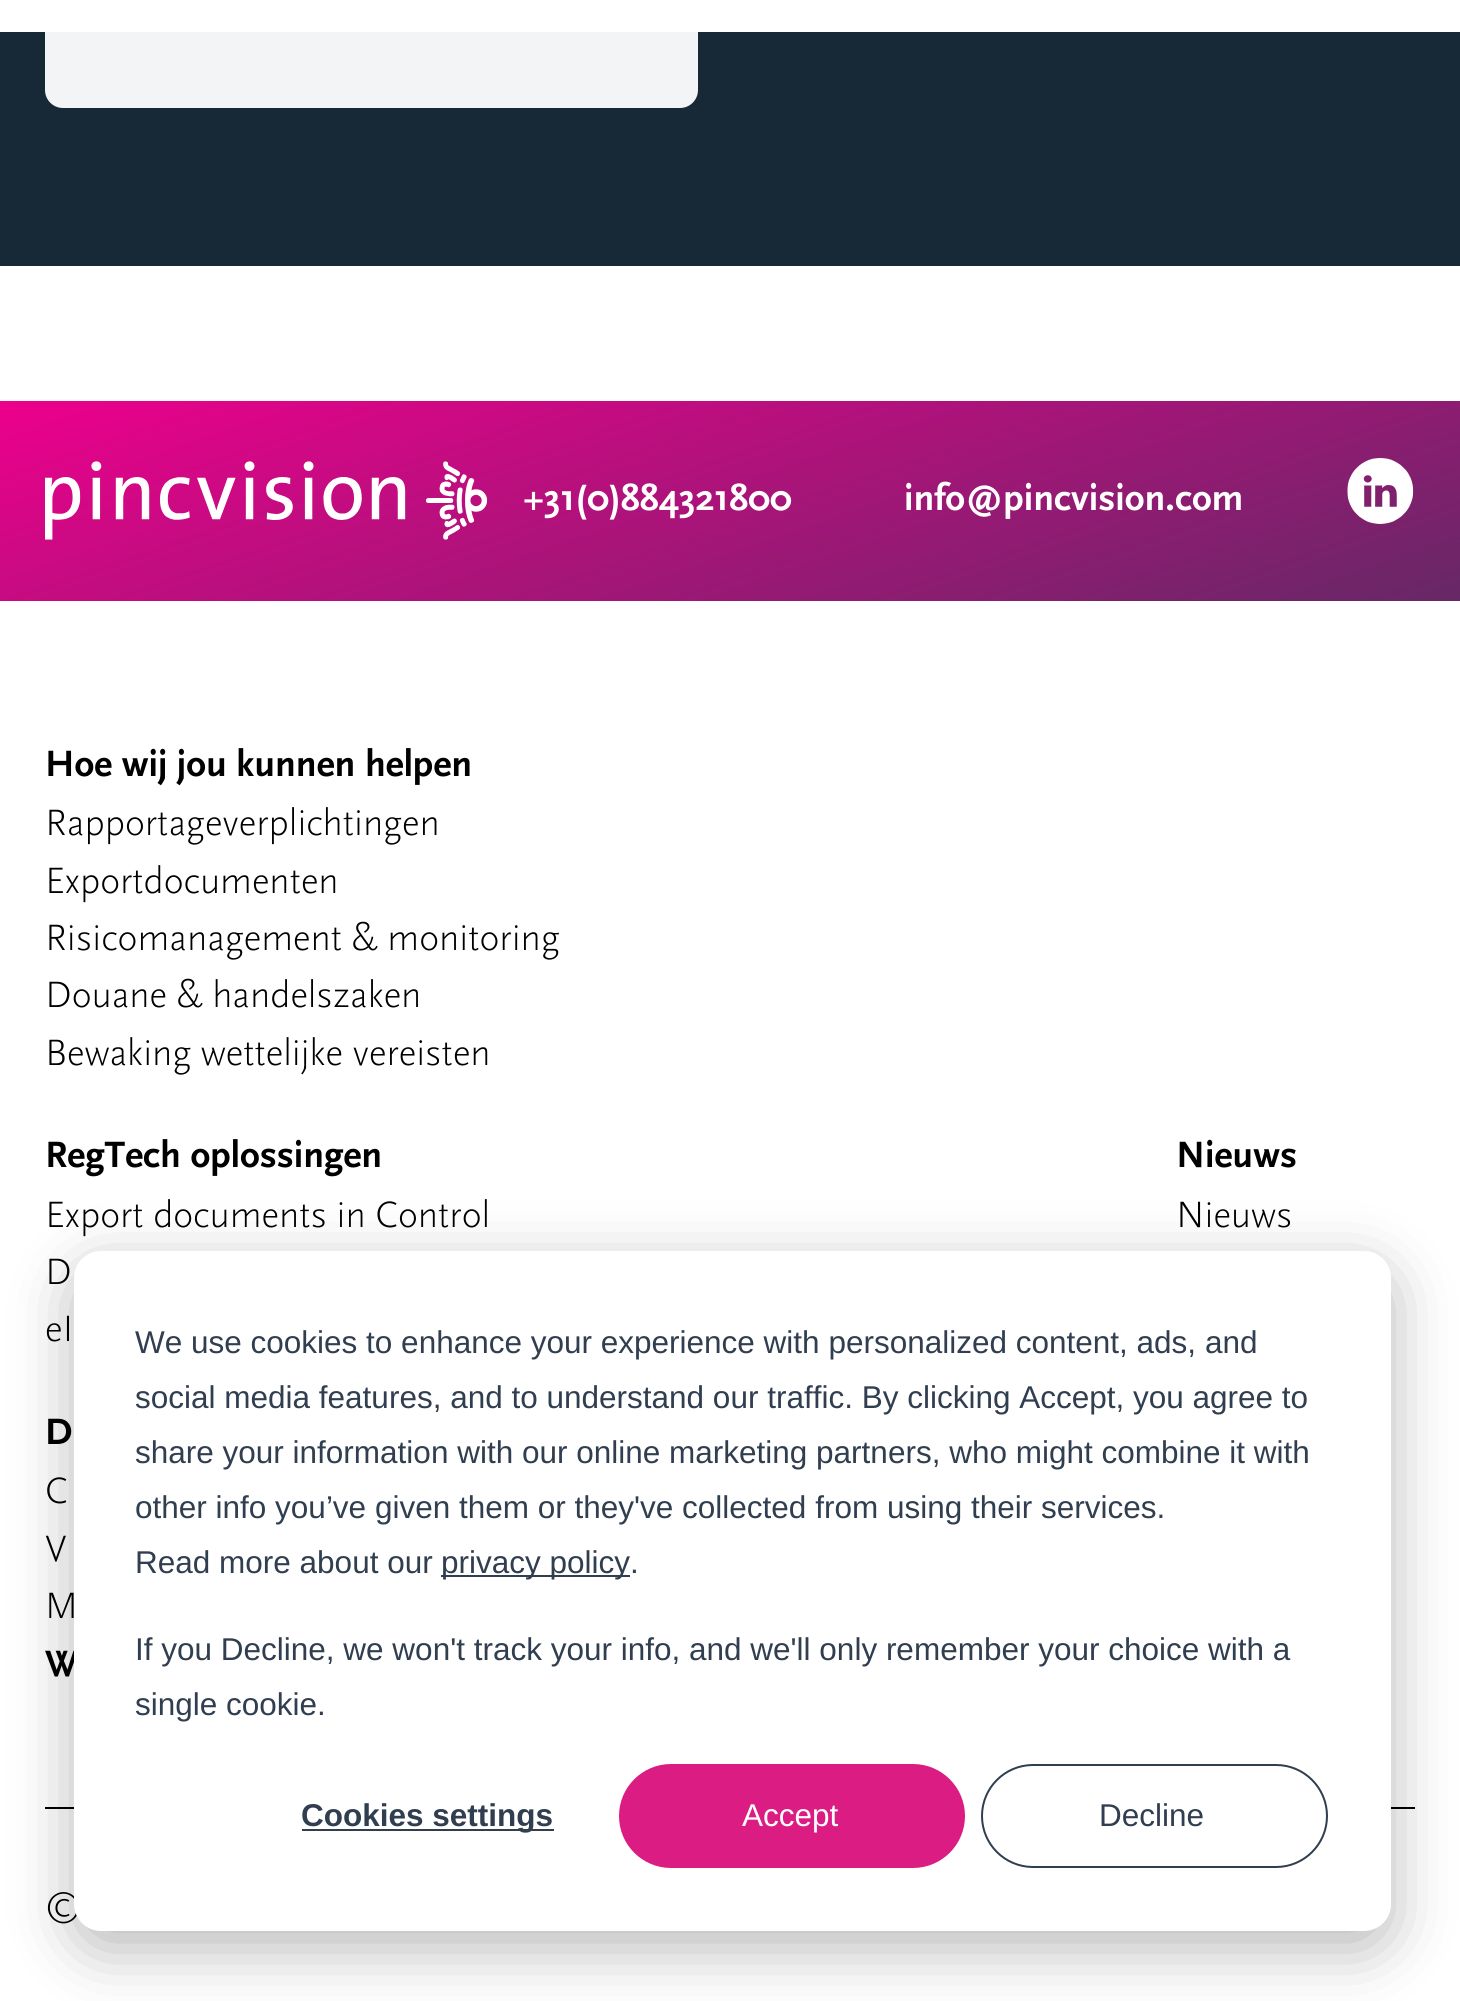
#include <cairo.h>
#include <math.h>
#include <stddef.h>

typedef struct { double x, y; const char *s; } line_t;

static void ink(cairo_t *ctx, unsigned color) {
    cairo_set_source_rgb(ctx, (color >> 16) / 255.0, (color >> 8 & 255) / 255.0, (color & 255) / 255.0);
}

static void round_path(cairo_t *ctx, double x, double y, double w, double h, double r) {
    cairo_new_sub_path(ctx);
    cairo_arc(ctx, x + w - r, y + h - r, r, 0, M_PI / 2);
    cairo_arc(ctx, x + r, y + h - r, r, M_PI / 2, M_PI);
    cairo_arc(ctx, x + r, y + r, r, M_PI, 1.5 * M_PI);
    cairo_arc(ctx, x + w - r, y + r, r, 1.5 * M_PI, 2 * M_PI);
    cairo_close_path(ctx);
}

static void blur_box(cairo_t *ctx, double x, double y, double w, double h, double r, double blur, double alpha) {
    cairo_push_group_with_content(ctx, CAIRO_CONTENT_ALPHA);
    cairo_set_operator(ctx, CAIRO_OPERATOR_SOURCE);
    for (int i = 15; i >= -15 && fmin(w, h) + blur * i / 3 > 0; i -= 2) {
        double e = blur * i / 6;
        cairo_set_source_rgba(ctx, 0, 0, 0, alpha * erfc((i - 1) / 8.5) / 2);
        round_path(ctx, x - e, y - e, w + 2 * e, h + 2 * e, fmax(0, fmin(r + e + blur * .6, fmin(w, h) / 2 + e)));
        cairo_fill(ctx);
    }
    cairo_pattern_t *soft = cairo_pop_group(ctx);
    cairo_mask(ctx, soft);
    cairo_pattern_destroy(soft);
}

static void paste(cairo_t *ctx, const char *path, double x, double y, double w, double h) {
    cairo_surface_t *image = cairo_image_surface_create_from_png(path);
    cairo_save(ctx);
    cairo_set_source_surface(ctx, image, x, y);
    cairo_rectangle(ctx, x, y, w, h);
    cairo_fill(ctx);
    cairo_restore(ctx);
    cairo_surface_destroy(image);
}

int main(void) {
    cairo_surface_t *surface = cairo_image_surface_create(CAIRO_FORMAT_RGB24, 1460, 2001);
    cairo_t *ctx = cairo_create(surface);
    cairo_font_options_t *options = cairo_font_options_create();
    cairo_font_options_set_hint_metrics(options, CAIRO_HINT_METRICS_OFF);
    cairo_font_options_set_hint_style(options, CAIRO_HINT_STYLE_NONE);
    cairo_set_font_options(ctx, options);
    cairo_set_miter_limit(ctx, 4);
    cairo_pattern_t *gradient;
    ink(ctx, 0xFFFFFF);
    cairo_paint(ctx);
    ink(ctx, 0x172837);
    cairo_rectangle(ctx, 0, 32, 1460, 234);
    cairo_fill(ctx);
    ink(ctx, 0xF3F4F5);
    round_path(ctx, 45, -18, 653, 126, 18);
    cairo_fill(ctx);
    ink(ctx, 0xFFFFFF);
    cairo_rectangle(ctx, 45, 0, 653, 32);
    cairo_fill(ctx);
    gradient = cairo_pattern_create_linear(622, 186, 838, 815);
    cairo_pattern_add_color_stop_rgba(gradient, 0.01, 0.925, 0, 0.549, 1);
    cairo_pattern_add_color_stop_rgba(gradient, 1, 0.4, 0.157, 0.4, 1);
    cairo_set_source(ctx, gradient);
    cairo_pattern_destroy(gradient);
    cairo_rectangle(ctx, 0, 401, 1460, 200);
    cairo_fill(ctx);
    paste(ctx, "media/1.png", 45, 461, 443, 79);
    cairo_select_font_face(ctx, "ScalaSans", CAIRO_FONT_SLANT_NORMAL, CAIRO_FONT_WEIGHT_BOLD);
    cairo_set_font_size(ctx, 38.25);
    ink(ctx, 0xFFFFFF);
    cairo_move_to(ctx, 523, 510);
    cairo_show_text(ctx, "+31(0)884321800");
    cairo_move_to(ctx, 904, 510);
    cairo_show_text(ctx, "info@pincvision.com");
    paste(ctx, "media/2.png", 1347, 458, 67, 66);
    ink(ctx, 0x000000);
    cairo_rectangle(ctx, 45, 1807, 1370, 2);
    cairo_fill(ctx);
    cairo_move_to(ctx, 45, 776);
    cairo_show_text(ctx, "Hoe wij jou kunnen helpen");
    cairo_select_font_face(ctx, "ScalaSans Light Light", CAIRO_FONT_SLANT_NORMAL, CAIRO_FONT_WEIGHT_NORMAL);
    {
        static const line_t items[] = {
            {45, 835, "Rapportageverplichtingen"},
            {45, 893, "Exportdocumenten"},
            {45, 950, "Risicomanagement & monitoring"},
            {45, 1007, "Douane & handelszaken"},
            {45, 1065, "Bewaking wettelijke vereisten"},
        };
        for (size_t i = 0; i < sizeof items / sizeof *items; i++) {
            cairo_move_to(ctx, items[i].x, items[i].y);
            cairo_show_text(ctx, items[i].s);
        }
    }
    cairo_select_font_face(ctx, "ScalaSans", CAIRO_FONT_SLANT_NORMAL, CAIRO_FONT_WEIGHT_BOLD);
    cairo_move_to(ctx, 45, 1167);
    cairo_show_text(ctx, "RegTech oplossingen");
    cairo_select_font_face(ctx, "ScalaSans Light Light", CAIRO_FONT_SLANT_NORMAL, CAIRO_FONT_WEIGHT_NORMAL);
    {
        static const line_t items[] = {
            {45, 1227, "Export documents in Control"},
            {45, 1284, "D"},
            {45, 1341, "eI"},
        };
        for (size_t i = 0; i < sizeof items / sizeof *items; i++) {
            cairo_move_to(ctx, items[i].x, items[i].y);
            cairo_show_text(ctx, items[i].s);
        }
    }
    cairo_select_font_face(ctx, "ScalaSans", CAIRO_FONT_SLANT_NORMAL, CAIRO_FONT_WEIGHT_BOLD);
    cairo_move_to(ctx, 1176, 1167);
    cairo_show_text(ctx, "Nieuws");
    cairo_select_font_face(ctx, "ScalaSans Light Light", CAIRO_FONT_SLANT_NORMAL, CAIRO_FONT_WEIGHT_NORMAL);
    cairo_move_to(ctx, 1176, 1227);
    cairo_show_text(ctx, "Nieuws");
    cairo_select_font_face(ctx, "ScalaSans", CAIRO_FONT_SLANT_NORMAL, CAIRO_FONT_WEIGHT_BOLD);
    cairo_move_to(ctx, 45, 1444);
    cairo_show_text(ctx, "D");
    cairo_select_font_face(ctx, "ScalaSans Light Light", CAIRO_FONT_SLANT_NORMAL, CAIRO_FONT_WEIGHT_NORMAL);
    {
        static const line_t items[] = {
            {45, 1503, "C"},
            {45, 1561, "V"},
            {45, 1618, "M"},
        };
        for (size_t i = 0; i < sizeof items / sizeof *items; i++) {
            cairo_move_to(ctx, items[i].x, items[i].y);
            cairo_show_text(ctx, items[i].s);
        }
    }
    cairo_select_font_face(ctx, "ScalaSans", CAIRO_FONT_SLANT_NORMAL, CAIRO_FONT_WEIGHT_BOLD);
    cairo_move_to(ctx, 45, 1676);
    cairo_show_text(ctx, "W");
    cairo_select_font_face(ctx, "ScalaSans Light Light", CAIRO_FONT_SLANT_NORMAL, CAIRO_FONT_WEIGHT_NORMAL);
    cairo_move_to(ctx, 45, 1917);
    cairo_show_text(ctx, "©");
    ink(ctx, 0x000000);
    blur_box(ctx, 74, 1269, 1317, 680, 27, 31.5, 0.28);
    ink(ctx, 0xFFFFFF);
    round_path(ctx, 74, 1251, 1317, 680, 27);
    cairo_fill(ctx);
    cairo_select_font_face(ctx, "Liberation Sans", CAIRO_FONT_SLANT_NORMAL, CAIRO_FONT_WEIGHT_NORMAL);
    cairo_set_font_size(ctx, 31.5);
    ink(ctx, 0x303E50);
    {
        static const line_t items[] = {
            {135, 1353, "We use cookies to enhance your experience with personalized content, ads, and"},
            {135, 1408, "social media features, and to understand our traffic. By clicking Accept, you agree to"},
            {135, 1463, "share your information with our online marketing partners, who might combine it with"},
            {135, 1518, "other info you’ve given them or they've collected from using their services."},
            {135, 1573, "Read more about our"},
        };
        for (size_t i = 0; i < sizeof items / sizeof *items; i++) {
            cairo_move_to(ctx, items[i].x, items[i].y);
            cairo_show_text(ctx, items[i].s);
        }
    }
    cairo_rectangle(ctx, 441, 1575, 189, 2);
    cairo_fill(ctx);
    {
        static const line_t items[] = {
            {441, 1573, "privacy policy."},
            {135, 1660, "If you Decline, we won't track your info, and we'll only remember your choice with a"},
            {135, 1715, "single cookie."},
        };
        for (size_t i = 0; i < sizeof items / sizeof *items; i++) {
            cairo_move_to(ctx, items[i].x, items[i].y);
            cairo_show_text(ctx, items[i].s);
        }
    }
    cairo_rectangle(ctx, 302, 1829, 252, 2);
    cairo_fill(ctx);
    cairo_select_font_face(ctx, "Liberation Sans", CAIRO_FONT_SLANT_NORMAL, CAIRO_FONT_WEIGHT_BOLD);
    cairo_move_to(ctx, 301, 1826);
    cairo_show_text(ctx, "Cookies settings");
    ink(ctx, 0xDB1C83);
    round_path(ctx, 620, 1765, 344, 102, 51);
    cairo_fill_preserve(ctx);
    cairo_stroke(ctx);
    cairo_select_font_face(ctx, "Liberation Sans", CAIRO_FONT_SLANT_NORMAL, CAIRO_FONT_WEIGHT_NORMAL);
    ink(ctx, 0xFFFFFF);
    cairo_move_to(ctx, 742, 1826);
    cairo_show_text(ctx, "Accept");
    round_path(ctx, 982, 1765, 345, 102, 51);
    ink(ctx, 0x303E50);
    cairo_stroke(ctx);
    cairo_move_to(ctx, 1099, 1826);
    cairo_show_text(ctx, "Decline");
    cairo_surface_write_to_png(surface, "image.png");
    cairo_font_options_destroy(options);
    cairo_destroy(ctx);
    cairo_surface_destroy(surface);
    return 0;
}
